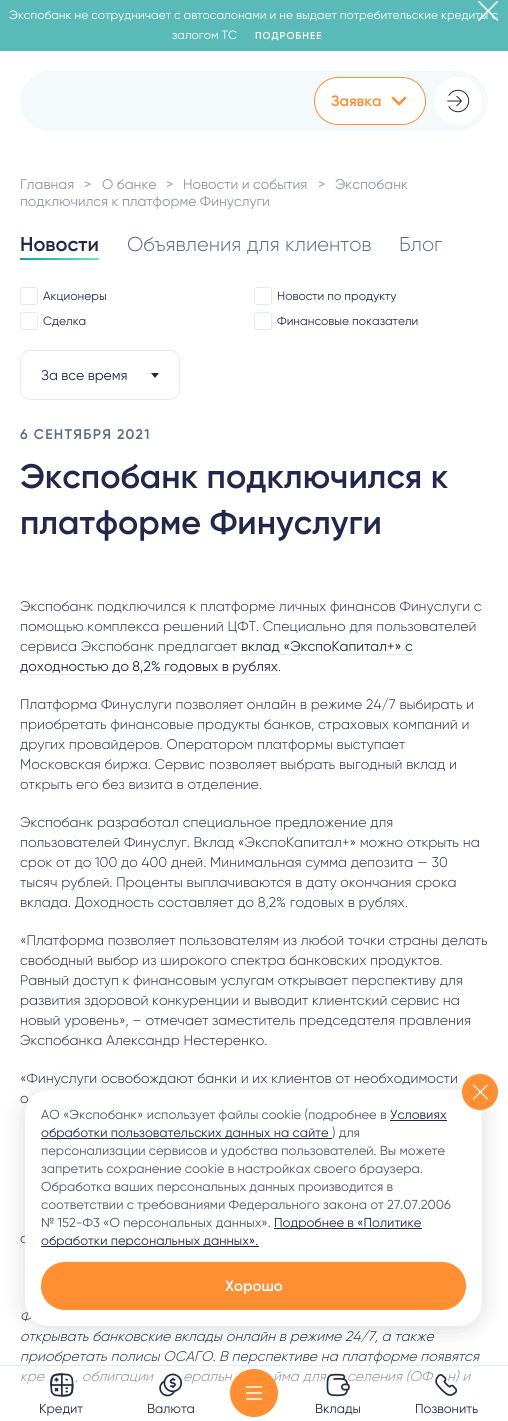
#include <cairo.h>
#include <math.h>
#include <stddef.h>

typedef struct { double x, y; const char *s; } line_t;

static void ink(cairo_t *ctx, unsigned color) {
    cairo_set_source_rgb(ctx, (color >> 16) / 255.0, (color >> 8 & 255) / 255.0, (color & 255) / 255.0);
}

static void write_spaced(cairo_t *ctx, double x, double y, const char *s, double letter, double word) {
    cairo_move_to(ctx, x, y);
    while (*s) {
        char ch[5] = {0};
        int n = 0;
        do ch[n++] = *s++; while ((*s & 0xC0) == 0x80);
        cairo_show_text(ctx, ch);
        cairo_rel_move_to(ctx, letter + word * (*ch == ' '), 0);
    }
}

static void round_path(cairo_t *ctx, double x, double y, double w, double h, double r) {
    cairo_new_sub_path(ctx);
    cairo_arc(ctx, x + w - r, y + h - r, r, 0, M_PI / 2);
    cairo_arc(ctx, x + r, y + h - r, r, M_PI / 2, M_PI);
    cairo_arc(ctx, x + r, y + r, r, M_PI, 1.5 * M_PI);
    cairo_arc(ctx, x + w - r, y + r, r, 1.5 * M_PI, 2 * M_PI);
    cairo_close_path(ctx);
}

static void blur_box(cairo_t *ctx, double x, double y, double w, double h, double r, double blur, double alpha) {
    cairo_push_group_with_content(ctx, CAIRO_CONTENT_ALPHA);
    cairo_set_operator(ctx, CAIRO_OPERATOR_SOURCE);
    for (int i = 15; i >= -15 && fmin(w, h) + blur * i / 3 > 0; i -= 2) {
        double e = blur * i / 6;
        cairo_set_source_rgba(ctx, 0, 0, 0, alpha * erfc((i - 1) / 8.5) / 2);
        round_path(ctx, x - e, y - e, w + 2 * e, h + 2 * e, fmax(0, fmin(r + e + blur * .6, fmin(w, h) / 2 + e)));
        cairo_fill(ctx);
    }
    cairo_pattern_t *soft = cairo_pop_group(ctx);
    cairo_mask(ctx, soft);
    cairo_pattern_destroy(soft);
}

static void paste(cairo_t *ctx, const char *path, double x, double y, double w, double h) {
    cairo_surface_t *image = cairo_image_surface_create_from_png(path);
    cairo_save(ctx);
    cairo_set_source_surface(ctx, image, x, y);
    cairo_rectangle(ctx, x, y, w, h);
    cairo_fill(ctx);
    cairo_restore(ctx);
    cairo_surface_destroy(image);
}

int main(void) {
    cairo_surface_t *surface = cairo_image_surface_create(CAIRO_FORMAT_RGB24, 508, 1421);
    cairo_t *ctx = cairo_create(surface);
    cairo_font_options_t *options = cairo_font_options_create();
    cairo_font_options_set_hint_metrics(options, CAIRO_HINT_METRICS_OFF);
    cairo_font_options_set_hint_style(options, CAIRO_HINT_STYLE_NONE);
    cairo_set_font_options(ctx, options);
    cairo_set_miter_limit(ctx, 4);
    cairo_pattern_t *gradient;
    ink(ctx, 0xFFFFFF);
    cairo_paint(ctx);
    ink(ctx, 0x5ABAB8);
    cairo_rectangle(ctx, 0, 0, 508, 51);
    cairo_fill(ctx);
    cairo_select_font_face(ctx, "Gilroy", CAIRO_FONT_SLANT_NORMAL, CAIRO_FONT_WEIGHT_NORMAL);
    cairo_set_font_size(ctx, 12);
    ink(ctx, 0xFFFFFF);
    cairo_move_to(ctx, 9, 19);
    cairo_show_text(ctx, "Экспобанк не сотрудничает с автосалонами и не выдает потребительские кредиты с");
    paste(ctx, "media/1.png", 478, 1, 20, 20);
    cairo_move_to(ctx, 172, 39);
    cairo_show_text(ctx, "залогом ТС");
    cairo_select_font_face(ctx, "Gilroy SemiBold", CAIRO_FONT_SLANT_NORMAL, CAIRO_FONT_WEIGHT_NORMAL);
    cairo_set_font_size(ctx, 10);
    write_spaced(ctx, 255, 39, "ПОДРОБНЕЕ", 1, 0);
    ink(ctx, 0xF4F9FC);
    round_path(ctx, 20, 71, 468, 60, 30);
    cairo_fill(ctx);
    ink(ctx, 0xFFFFFF);
    round_path(ctx, 314.5, 77.5, 111, 47, 23.5);
    cairo_fill_preserve(ctx);
    ink(ctx, 0xFF8F32);
    cairo_set_line_width(ctx, 1);
    cairo_stroke(ctx);
    cairo_set_font_size(ctx, 15);
    cairo_move_to(ctx, 331, 106);
    cairo_show_text(ctx, "Заявка");
    paste(ctx, "media/2.png", 391, 96, 16, 10);
    ink(ctx, 0xFFFFFF);
    cairo_arc(ctx, 458, 101, 24, 0, 2 * M_PI);
    cairo_fill(ctx);
    paste(ctx, "media/3.png", 447, 89, 23, 24);
    cairo_select_font_face(ctx, "Gilroy", CAIRO_FONT_SLANT_NORMAL, CAIRO_FONT_WEIGHT_NORMAL);
    cairo_set_font_size(ctx, 14);
    ink(ctx, 0x9194A5);
    {
        static const line_t items[] = {
            {20, 189, "Главная"},
            {84, 189, ">"},
            {102, 189, "О банке"},
            {166, 189, ">"},
            {183, 189, "Новости и события"},
            {318, 189, ">"},
            {335, 189, "Экспобанк"},
            {20, 206, "подключился к платформе Финуслуги"},
        };
        for (size_t i = 0; i < sizeof items / sizeof *items; i++) {
            cairo_move_to(ctx, items[i].x, items[i].y);
            cairo_show_text(ctx, items[i].s);
        }
    }
    cairo_select_font_face(ctx, "Gilroy SemiBold", CAIRO_FONT_SLANT_NORMAL, CAIRO_FONT_WEIGHT_NORMAL);
    cairo_set_font_size(ctx, 20);
    ink(ctx, 0x22284B);
    cairo_move_to(ctx, 20, 251);
    cairo_show_text(ctx, "Новости");
    gradient = cairo_pattern_create_linear(59, 265, 60, 253);
    cairo_pattern_add_color_stop_rgba(gradient, 0, 0.024, 0.498, 0.549, 1);
    cairo_pattern_add_color_stop_rgba(gradient, 0.34, 0.137, 0.69, 0.69, 1);
    cairo_pattern_add_color_stop_rgba(gradient, 0.88, 0.502, 0.945, 0.867, 1);
    cairo_set_source(ctx, gradient);
    cairo_pattern_destroy(gradient);
    cairo_rectangle(ctx, 20, 258, 79, 2);
    cairo_fill(ctx);
    cairo_select_font_face(ctx, "Gilroy Light", CAIRO_FONT_SLANT_NORMAL, CAIRO_FONT_WEIGHT_NORMAL);
    ink(ctx, 0x596A8C);
    cairo_move_to(ctx, 127, 251);
    cairo_show_text(ctx, "Объявления для клиентов");
    cairo_move_to(ctx, 399, 251);
    cairo_show_text(ctx, "Блог");
    round_path(ctx, 20.5, 287.5, 17, 17, 2.5);
    ink(ctx, 0xE6ECEE);
    cairo_stroke(ctx);
    cairo_select_font_face(ctx, "Gilroy", CAIRO_FONT_SLANT_NORMAL, CAIRO_FONT_WEIGHT_NORMAL);
    cairo_set_font_size(ctx, 12);
    ink(ctx, 0x22284B);
    cairo_move_to(ctx, 43, 300);
    cairo_show_text(ctx, "Акционеры");
    round_path(ctx, 254.5, 287.5, 17, 17, 2.5);
    ink(ctx, 0xE6ECEE);
    cairo_stroke(ctx);
    ink(ctx, 0x22284B);
    cairo_move_to(ctx, 277, 300);
    cairo_show_text(ctx, "Новости по продукту");
    round_path(ctx, 20.5, 312.5, 17, 17, 2.5);
    ink(ctx, 0xE6ECEE);
    cairo_stroke(ctx);
    ink(ctx, 0x22284B);
    cairo_move_to(ctx, 43, 325);
    cairo_show_text(ctx, "Сделка");
    round_path(ctx, 254.5, 312.5, 17, 17, 2.5);
    ink(ctx, 0xE6ECEE);
    cairo_stroke(ctx);
    ink(ctx, 0x22284B);
    cairo_move_to(ctx, 277, 325);
    cairo_show_text(ctx, "Финансовые показатели");
    round_path(ctx, 20.5, 350.5, 159, 49, 9.5);
    ink(ctx, 0xE6ECEE);
    cairo_stroke(ctx);
    cairo_set_font_size(ctx, 14);
    ink(ctx, 0x22284B);
    cairo_move_to(ctx, 41, 380);
    cairo_show_text(ctx, "За все время");
    cairo_new_path(ctx);
    cairo_move_to(ctx, 151, 373);
    cairo_line_to(ctx, 159, 373);
    cairo_line_to(ctx, 155, 378);
    cairo_close_path(ctx);
    cairo_fill(ctx);
    cairo_select_font_face(ctx, "Gilroy SemiBold", CAIRO_FONT_SLANT_NORMAL, CAIRO_FONT_WEIGHT_NORMAL);
    ink(ctx, 0x596A8C);
    write_spaced(ctx, 20, 439, "6 СЕНТЯБРЯ 2021", 1.25, 0);
    cairo_set_font_size(ctx, 34);
    ink(ctx, 0x22284B);
    cairo_move_to(ctx, 20, 488);
    cairo_show_text(ctx, "Экспобанк подключился к");
    cairo_move_to(ctx, 20, 534);
    cairo_show_text(ctx, "платформе Финуслуги");
    cairo_select_font_face(ctx, "Gilroy Light", CAIRO_FONT_SLANT_NORMAL, CAIRO_FONT_WEIGHT_NORMAL);
    cairo_set_font_size(ctx, 14);
    {
        static const line_t items[] = {
            {20, 611, "Экспобанк подключился к платформе личных финансов Финуслуги с"},
            {20, 631, "помощью комплекса решений ЦФТ. Специально для пользователей"},
            {20, 651, "сервиса Экспобанк предлагает"},
        };
        for (size_t i = 0; i < sizeof items / sizeof *items; i++) {
            cairo_move_to(ctx, items[i].x, items[i].y);
            cairo_show_text(ctx, items[i].s);
        }
    }
    cairo_select_font_face(ctx, "Gilroy", CAIRO_FONT_SLANT_NORMAL, CAIRO_FONT_WEIGHT_NORMAL);
    cairo_move_to(ctx, 241, 651);
    cairo_show_text(ctx, "вклад «ЭкспоКапитал+» с");
    ink(ctx, 0xE6ECEE);
    cairo_rectangle(ctx, 241, 654, 172, 1);
    cairo_fill(ctx);
    ink(ctx, 0x22284B);
    cairo_move_to(ctx, 20, 671);
    cairo_show_text(ctx, "доходностью до 8,2% годовых в рублях");
    ink(ctx, 0xE6ECEE);
    cairo_rectangle(ctx, 20, 674, 258, 1);
    cairo_fill(ctx);
    cairo_select_font_face(ctx, "Gilroy Light", CAIRO_FONT_SLANT_NORMAL, CAIRO_FONT_WEIGHT_NORMAL);
    ink(ctx, 0x22284B);
    {
        static const line_t items[] = {
            {278, 671, "."},
            {20, 709, "Платформа Финуслуги позволяет онлайн в режиме 24/7 выбирать и"},
            {20, 729, "приобретать финансовые продукты банков, страховых компаний и"},
            {20, 749, "других провайдеров. Оператором платформы выступает"},
            {20, 769, "Московская биржа. Сервис позволяет выбрать выгодный вклад и"},
            {20, 789, "открыть его без визита в отделение."},
            {20, 827, "Экспобанк разработал специальное предложение для"},
            {20, 847, "пользователей Финуслуг. Вклад «ЭкспоКапитал+» можно открыть на"},
            {20, 867, "срок от до 100 до 400 дней. Минимальная сумма депозита — 30"},
            {20, 887, "тысяч рублей. Проценты выплачиваются в дату окончания срока"},
            {20, 907, "вклада. Доходность составляет до 8,2% годовых в рублях."},
            {20, 945, "«Платформа позволяет пользователям из любой точки страны делать"},
            {20, 965, "свободный выбор из широкого спектра банковских продуктов."},
            {20, 985, "Равный доступ к финансовым услугам открывает перспективу для"},
            {20, 1005, "развития здоровой конкуренции и выводит клиентский сервис на"},
            {20, 1025, "новый уровень», – отмечает заместитель председателя правления"},
            {20, 1045, "Экспобанка Александр Нестеренко."},
            {20, 1083, "«Финуслуги освобождают банки и их клиентов от необходимости"},
            {20, 1103, "о"},
            {20, 1243, "с"},
        };
        for (size_t i = 0; i < sizeof items / sizeof *items; i++) {
            cairo_move_to(ctx, items[i].x, items[i].y);
            cairo_show_text(ctx, items[i].s);
        }
    }
    cairo_select_font_face(ctx, "Gilroy Light", CAIRO_FONT_SLANT_ITALIC, CAIRO_FONT_WEIGHT_NORMAL);
    {
        static const line_t items[] = {
            {20, 1321, "Ф"},
            {20, 1341, "открывать банковские вклады онлайн в режиме 24/7, а также"},
            {20, 1361, "приобретать полисы ОСАГО. В перспективе на платформе появятся"},
            {20, 1381, "кре"},
            {75, 1381, ", облигации"},
            {183, 1381, "еральн"},
            {273, 1381, "йма для"},
            {347, 1381, "селения (ОФ"},
            {447, 1381, "н) и"},
        };
        for (size_t i = 0; i < sizeof items / sizeof *items; i++) {
            cairo_move_to(ctx, items[i].x, items[i].y);
            cairo_show_text(ctx, items[i].s);
        }
    }
    ink(ctx, 0x000000);
    blur_box(ctx, 25, 1092, 457, 236, 24, 12, 0.15);
    ink(ctx, 0xFFFFFF);
    round_path(ctx, 25, 1090, 457, 236, 24);
    cairo_fill(ctx);
    paste(ctx, "media/4.png", 462, 1074, 36, 36);
    cairo_select_font_face(ctx, "Gilroy", CAIRO_FONT_SLANT_NORMAL, CAIRO_FONT_WEIGHT_NORMAL);
    cairo_set_font_size(ctx, 13);
    ink(ctx, 0x4E536F);
    cairo_move_to(ctx, 41, 1119);
    cairo_show_text(ctx, "АО «Экспобанк» использует файлы cookie (подробнее в");
    ink(ctx, 0x22284B);
    cairo_move_to(ctx, 390, 1119);
    cairo_show_text(ctx, "Условиях");
    cairo_rectangle(ctx, 390, 1120, 57, 1);
    cairo_fill(ctx);
    cairo_rectangle(ctx, 41, 1138, 291, 1);
    cairo_fill(ctx);
    cairo_move_to(ctx, 41, 1137);
    cairo_show_text(ctx, "обработки пользовательских данных на сайте");
    ink(ctx, 0x4E536F);
    {
        static const line_t items[] = {
            {332, 1137, ") для"},
            {41, 1155, "персонализации сервисов и удобства пользователей. Вы можете"},
            {41, 1173, "запретить сохранение cookie в настройках своего браузера."},
            {41, 1191, "Обработка ваших персональных данных производится в"},
            {41, 1209, "соответствии с требованиями Федерального закона от 27.07.2006"},
            {41, 1227, "№ 152-Ф3 «О персональных данных»."},
        };
        for (size_t i = 0; i < sizeof items / sizeof *items; i++) {
            cairo_move_to(ctx, items[i].x, items[i].y);
            cairo_show_text(ctx, items[i].s);
        }
    }
    ink(ctx, 0x22284B);
    cairo_rectangle(ctx, 274, 1228, 148, 1);
    cairo_fill(ctx);
    cairo_move_to(ctx, 274, 1227);
    cairo_show_text(ctx, "Подробнее в «Политике");
    cairo_rectangle(ctx, 41, 1246, 218, 1);
    cairo_fill(ctx);
    cairo_move_to(ctx, 41, 1245);
    cairo_show_text(ctx, "обработки персональных данных».");
    ink(ctx, 0xFF8F32);
    round_path(ctx, 41, 1262, 425, 48, 24);
    cairo_fill(ctx);
    cairo_select_font_face(ctx, "Gilroy SemiBold", CAIRO_FONT_SLANT_NORMAL, CAIRO_FONT_WEIGHT_NORMAL);
    cairo_set_font_size(ctx, 15);
    ink(ctx, 0xFFFFFF);
    cairo_move_to(ctx, 225, 1291);
    cairo_show_text(ctx, "Хорошо");
    gradient = cairo_pattern_create_linear(254, 1365, 254, 1421);
    cairo_pattern_add_color_stop_rgba(gradient, 0, 1, 1, 1, 0.3);
    cairo_pattern_add_color_stop_rgba(gradient, 1, 1, 1, 1, 1);
    cairo_set_source(ctx, gradient);
    cairo_pattern_destroy(gradient);
    cairo_rectangle(ctx, 21, 1369, 451, 15);
    cairo_fill(ctx);
    ink(ctx, 0xE0EDF6);
    cairo_rectangle(ctx, 0, 1365, 508, 1);
    cairo_fill(ctx);
    paste(ctx, "media/5.png", 50, 1373, 24, 24);
    cairo_select_font_face(ctx, "Gilroy", CAIRO_FONT_SLANT_NORMAL, CAIRO_FONT_WEIGHT_NORMAL);
    cairo_set_font_size(ctx, 13);
    ink(ctx, 0x22284B);
    cairo_move_to(ctx, 39, 1413);
    cairo_show_text(ctx, "Кредит");
    paste(ctx, "media/6.png", 159, 1373, 24, 24);
    cairo_move_to(ctx, 147, 1413);
    cairo_show_text(ctx, "Валюта");
    ink(ctx, 0xFF8F32);
    cairo_new_path(ctx);
    cairo_arc(ctx, 254, 1393, 24, 0, 2 * M_PI);
    cairo_fill(ctx);
    cairo_new_path(ctx);
    cairo_move_to(ctx, 246, 1387);
    cairo_line_to(ctx, 262, 1387);
    cairo_move_to(ctx, 246, 1393);
    cairo_line_to(ctx, 262, 1393);
    cairo_move_to(ctx, 246, 1399);
    cairo_line_to(ctx, 262, 1399);
    ink(ctx, 0xFFFFFF);
    cairo_set_line_width(ctx, 1.5);
    cairo_stroke(ctx);
    paste(ctx, "media/7.png", 326, 1373, 24, 24);
    ink(ctx, 0x22284B);
    cairo_move_to(ctx, 315, 1413);
    cairo_show_text(ctx, "Вклады");
    paste(ctx, "media/8.png", 435, 1374, 23, 22);
    cairo_move_to(ctx, 415, 1413);
    cairo_show_text(ctx, "Позвонить");
    cairo_surface_write_to_png(surface, "image.png");
    cairo_font_options_destroy(options);
    cairo_destroy(ctx);
    cairo_surface_destroy(surface);
    return 0;
}
